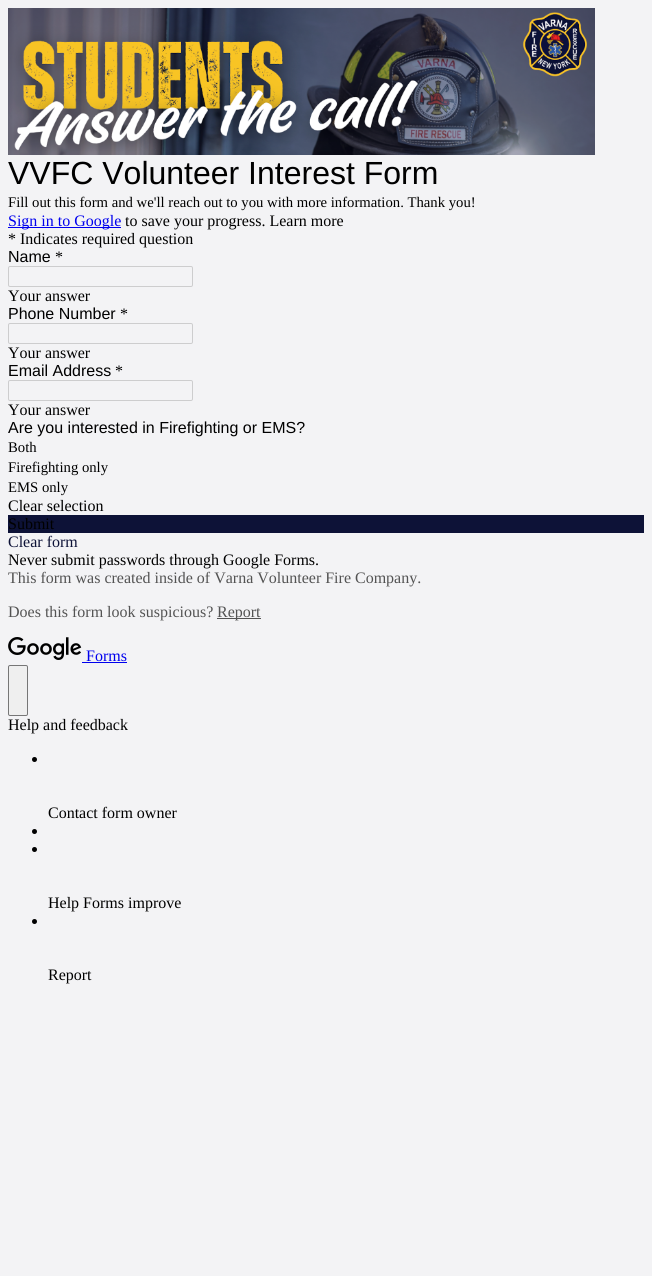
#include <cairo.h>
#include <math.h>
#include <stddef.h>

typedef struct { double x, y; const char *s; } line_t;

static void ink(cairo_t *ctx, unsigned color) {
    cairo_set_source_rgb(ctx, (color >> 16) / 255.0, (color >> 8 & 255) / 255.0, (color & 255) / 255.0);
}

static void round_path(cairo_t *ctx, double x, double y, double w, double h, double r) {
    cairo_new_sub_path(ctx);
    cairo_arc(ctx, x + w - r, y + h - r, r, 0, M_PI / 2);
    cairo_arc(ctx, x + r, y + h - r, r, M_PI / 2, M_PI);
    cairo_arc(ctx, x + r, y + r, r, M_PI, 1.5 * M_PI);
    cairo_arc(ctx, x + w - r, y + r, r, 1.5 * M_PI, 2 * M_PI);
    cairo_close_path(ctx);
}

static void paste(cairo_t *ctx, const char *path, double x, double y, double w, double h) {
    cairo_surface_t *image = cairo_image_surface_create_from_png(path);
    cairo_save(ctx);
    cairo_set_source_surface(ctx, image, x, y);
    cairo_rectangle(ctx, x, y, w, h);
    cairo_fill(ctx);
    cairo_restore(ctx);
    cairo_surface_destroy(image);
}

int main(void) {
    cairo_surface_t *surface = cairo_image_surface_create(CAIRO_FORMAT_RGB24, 652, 1276);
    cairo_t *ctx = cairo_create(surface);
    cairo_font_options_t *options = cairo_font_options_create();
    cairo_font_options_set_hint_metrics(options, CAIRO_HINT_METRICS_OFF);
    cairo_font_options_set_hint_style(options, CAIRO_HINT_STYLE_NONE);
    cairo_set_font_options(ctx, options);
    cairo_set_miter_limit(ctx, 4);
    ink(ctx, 0xF3F3F5);
    cairo_paint(ctx);
    paste(ctx, "media/1.png", 8, 8, 587, 147);
    cairo_select_font_face(ctx, "Liberation Sans", CAIRO_FONT_SLANT_NORMAL, CAIRO_FONT_WEIGHT_NORMAL);
    cairo_set_font_size(ctx, 32);
    ink(ctx, 0x000000);
    cairo_move_to(ctx, 8, 184);
    cairo_show_text(ctx, "VVFC Volunteer Interest Form");
    cairo_select_font_face(ctx, "Liberation Serif", CAIRO_FONT_SLANT_NORMAL, CAIRO_FONT_WEIGHT_NORMAL);
    cairo_set_font_size(ctx, 14.7);
    cairo_move_to(ctx, 8, 207);
    cairo_show_text(ctx, "Fill out this form and we'll reach out to you with more information. Thank you!");
    ink(ctx, 0x0000EE);
    cairo_rectangle(ctx, 8, 227, 113, 1);
    cairo_fill(ctx);
    cairo_set_font_size(ctx, 16);
    cairo_move_to(ctx, 8, 226);
    cairo_show_text(ctx, "Sign in to Google");
    ink(ctx, 0x000000);
    cairo_move_to(ctx, 125, 226);
    cairo_show_text(ctx, "to save your progress. Learn more");
    cairo_move_to(ctx, 8, 244);
    cairo_show_text(ctx, "* Indicates required question");
    cairo_select_font_face(ctx, "Liberation Sans", CAIRO_FONT_SLANT_NORMAL, CAIRO_FONT_WEIGHT_NORMAL);
    cairo_move_to(ctx, 8, 262);
    cairo_show_text(ctx, "Name");
    cairo_select_font_face(ctx, "Liberation Serif", CAIRO_FONT_SLANT_NORMAL, CAIRO_FONT_WEIGHT_NORMAL);
    cairo_move_to(ctx, 55, 262);
    cairo_show_text(ctx, "*");
    round_path(ctx, 8.5, 266.5, 184, 20, 1.5);
    ink(ctx, 0xCDCDCE);
    cairo_set_line_width(ctx, 1);
    cairo_stroke(ctx);
    ink(ctx, 0x000000);
    cairo_move_to(ctx, 8, 301);
    cairo_show_text(ctx, "Your answer");
    cairo_select_font_face(ctx, "Liberation Sans", CAIRO_FONT_SLANT_NORMAL, CAIRO_FONT_WEIGHT_NORMAL);
    cairo_move_to(ctx, 8, 319);
    cairo_show_text(ctx, "Phone Number");
    cairo_select_font_face(ctx, "Liberation Serif", CAIRO_FONT_SLANT_NORMAL, CAIRO_FONT_WEIGHT_NORMAL);
    cairo_move_to(ctx, 120, 319);
    cairo_show_text(ctx, "*");
    round_path(ctx, 8.5, 323.5, 184, 20, 1.5);
    ink(ctx, 0xCDCDCE);
    cairo_stroke(ctx);
    ink(ctx, 0x000000);
    cairo_move_to(ctx, 8, 358);
    cairo_show_text(ctx, "Your answer");
    cairo_select_font_face(ctx, "Liberation Sans", CAIRO_FONT_SLANT_NORMAL, CAIRO_FONT_WEIGHT_NORMAL);
    cairo_move_to(ctx, 8, 376);
    cairo_show_text(ctx, "Email Address");
    cairo_select_font_face(ctx, "Liberation Serif", CAIRO_FONT_SLANT_NORMAL, CAIRO_FONT_WEIGHT_NORMAL);
    cairo_move_to(ctx, 115, 376);
    cairo_show_text(ctx, "*");
    round_path(ctx, 8.5, 380.5, 184, 20, 1.5);
    ink(ctx, 0xCDCDCE);
    cairo_stroke(ctx);
    ink(ctx, 0x000000);
    cairo_move_to(ctx, 8, 415);
    cairo_show_text(ctx, "Your answer");
    cairo_select_font_face(ctx, "Liberation Sans", CAIRO_FONT_SLANT_NORMAL, CAIRO_FONT_WEIGHT_NORMAL);
    cairo_move_to(ctx, 8, 433);
    cairo_show_text(ctx, "Are you interested in Firefighting or EMS?");
    cairo_select_font_face(ctx, "Liberation Serif", CAIRO_FONT_SLANT_NORMAL, CAIRO_FONT_WEIGHT_NORMAL);
    cairo_set_font_size(ctx, 14.7);
    {
        static const line_t items[] = {
            {8, 452, "Both"},
            {8, 472, "Firefighting only"},
            {8, 492, "EMS only"},
        };
        for (size_t i = 0; i < sizeof items / sizeof *items; i++) {
            cairo_move_to(ctx, items[i].x, items[i].y);
            cairo_show_text(ctx, items[i].s);
        }
    }
    cairo_set_font_size(ctx, 16);
    cairo_move_to(ctx, 8, 511);
    cairo_show_text(ctx, "Clear selection");
    ink(ctx, 0x0D1237);
    cairo_rectangle(ctx, 8, 515, 636, 18);
    cairo_fill(ctx);
    ink(ctx, 0x000000);
    cairo_move_to(ctx, 8, 529);
    cairo_show_text(ctx, "Submit");
    ink(ctx, 0x0D1237);
    cairo_move_to(ctx, 8, 547);
    cairo_show_text(ctx, "Clear form");
    ink(ctx, 0x000000);
    cairo_move_to(ctx, 8, 565);
    cairo_show_text(ctx, "Never submit passwords through Google Forms.");
    ink(ctx, 0x535353);
    cairo_move_to(ctx, 8, 583);
    cairo_show_text(ctx, "This form was created inside of Varna Volunteer Fire Company.");
    cairo_move_to(ctx, 8, 617);
    cairo_show_text(ctx, "Does this form look suspicious?");
    cairo_rectangle(ctx, 217, 618, 44, 1);
    cairo_fill(ctx);
    cairo_move_to(ctx, 217, 617);
    cairo_show_text(ctx, "Report");
    paste(ctx, "media/2.png", 8, 637, 74, 23);
    ink(ctx, 0x0000EE);
    cairo_move_to(ctx, 86, 661);
    cairo_show_text(ctx, "Forms");
    cairo_rectangle(ctx, 82, 662, 45, 1);
    cairo_fill(ctx);
    ink(ctx, 0xEFEFEF);
    round_path(ctx, 8.5, 665.5, 19, 50, 1.5);
    cairo_fill_preserve(ctx);
    ink(ctx, 0x767676);
    cairo_stroke(ctx);
    ink(ctx, 0x000000);
    cairo_move_to(ctx, 8, 730);
    cairo_show_text(ctx, "Help and feedback");
    cairo_new_path(ctx);
    cairo_arc(ctx, 34.5, 759.5, 2.5, 0, 2 * M_PI);
    cairo_fill(ctx);
    cairo_move_to(ctx, 48, 818);
    cairo_show_text(ctx, "Contact form owner");
    cairo_new_path(ctx);
    cairo_arc(ctx, 34.5, 831.5, 2.5, 0, 2 * M_PI);
    cairo_fill(ctx);
    cairo_arc(ctx, 34.5, 849.5, 2.5, 0, 2 * M_PI);
    cairo_fill(ctx);
    cairo_move_to(ctx, 48, 908);
    cairo_show_text(ctx, "Help Forms improve");
    cairo_new_path(ctx);
    cairo_arc(ctx, 34.5, 921.5, 2.5, 0, 2 * M_PI);
    cairo_fill(ctx);
    cairo_move_to(ctx, 48, 980);
    cairo_show_text(ctx, "Report");
    cairo_surface_write_to_png(surface, "image.png");
    cairo_font_options_destroy(options);
    cairo_destroy(ctx);
    cairo_surface_destroy(surface);
    return 0;
}
